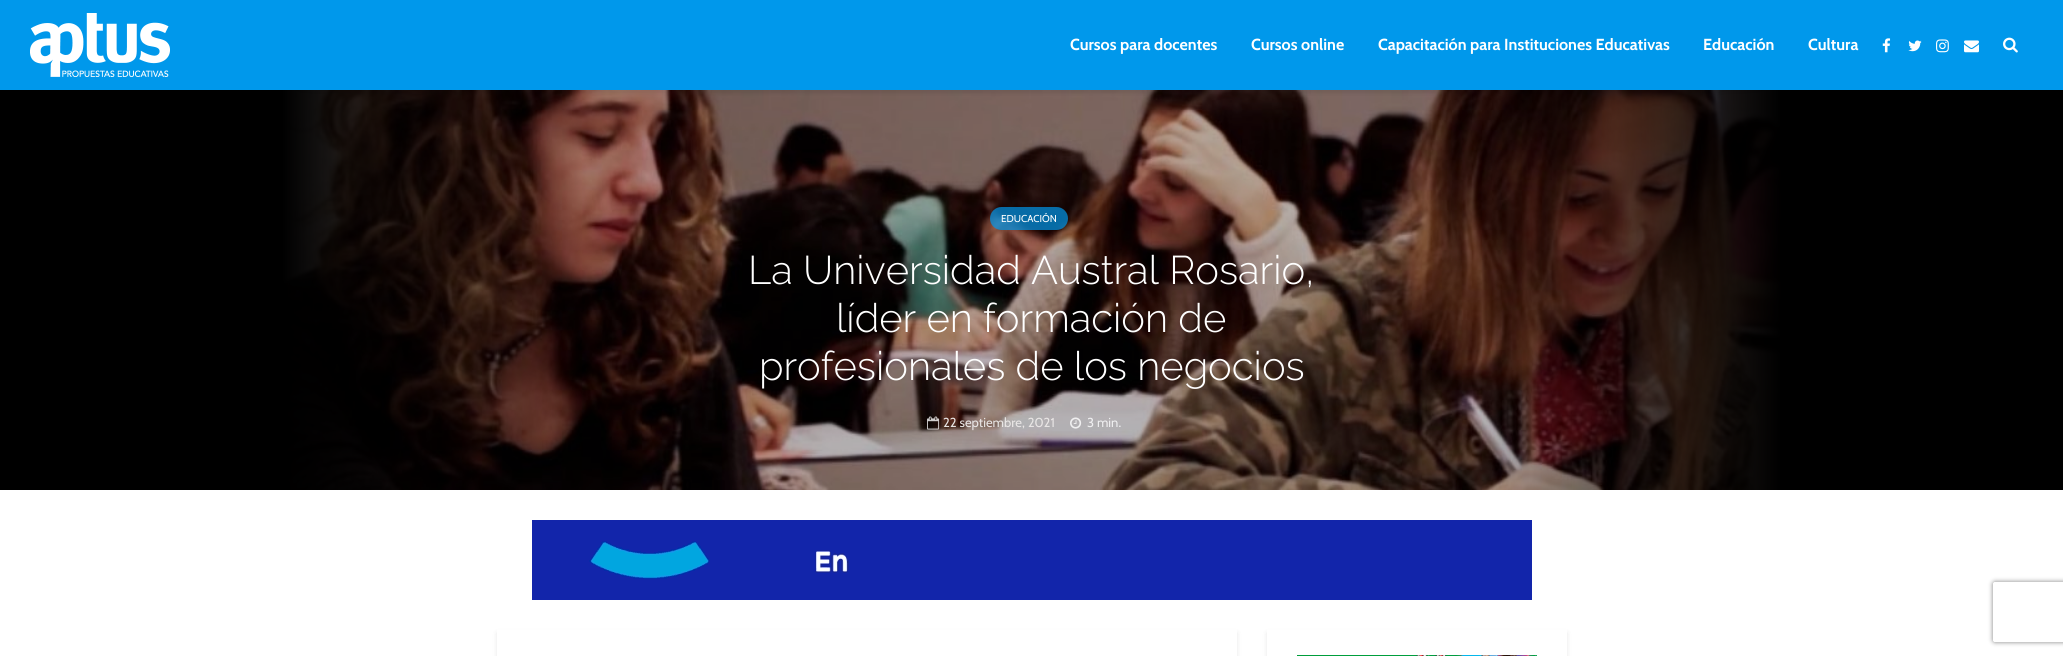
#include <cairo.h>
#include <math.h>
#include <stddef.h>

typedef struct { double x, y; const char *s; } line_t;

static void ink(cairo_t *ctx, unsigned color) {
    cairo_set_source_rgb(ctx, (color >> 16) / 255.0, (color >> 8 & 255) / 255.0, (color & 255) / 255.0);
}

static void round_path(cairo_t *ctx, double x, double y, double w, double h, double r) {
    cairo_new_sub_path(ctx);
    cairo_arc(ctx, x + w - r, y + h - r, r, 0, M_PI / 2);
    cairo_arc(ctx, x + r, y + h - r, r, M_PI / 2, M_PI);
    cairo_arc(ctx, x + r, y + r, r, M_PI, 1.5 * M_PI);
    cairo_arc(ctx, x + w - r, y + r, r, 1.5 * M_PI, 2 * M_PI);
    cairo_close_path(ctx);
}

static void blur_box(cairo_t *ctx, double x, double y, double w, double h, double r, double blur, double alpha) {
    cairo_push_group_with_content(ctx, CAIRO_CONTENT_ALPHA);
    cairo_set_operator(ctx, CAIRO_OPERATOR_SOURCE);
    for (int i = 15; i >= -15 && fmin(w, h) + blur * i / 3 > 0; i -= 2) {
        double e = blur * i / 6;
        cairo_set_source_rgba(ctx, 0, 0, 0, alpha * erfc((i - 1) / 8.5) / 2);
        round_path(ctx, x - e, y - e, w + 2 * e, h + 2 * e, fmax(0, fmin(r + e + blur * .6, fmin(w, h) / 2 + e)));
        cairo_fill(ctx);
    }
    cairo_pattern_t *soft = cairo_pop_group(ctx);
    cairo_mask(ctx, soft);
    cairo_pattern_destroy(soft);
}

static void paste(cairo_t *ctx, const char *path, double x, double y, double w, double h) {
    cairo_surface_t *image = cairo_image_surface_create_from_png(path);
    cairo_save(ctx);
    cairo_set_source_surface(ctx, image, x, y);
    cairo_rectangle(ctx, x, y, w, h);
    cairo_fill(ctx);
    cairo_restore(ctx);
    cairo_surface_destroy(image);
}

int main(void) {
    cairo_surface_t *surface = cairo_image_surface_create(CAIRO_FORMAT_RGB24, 2063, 656);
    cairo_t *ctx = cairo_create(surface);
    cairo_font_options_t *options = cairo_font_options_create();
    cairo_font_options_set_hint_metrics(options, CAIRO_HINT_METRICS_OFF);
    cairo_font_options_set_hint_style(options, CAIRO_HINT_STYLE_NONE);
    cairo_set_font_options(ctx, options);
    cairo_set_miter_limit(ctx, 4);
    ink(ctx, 0xFFFFFF);
    cairo_paint(ctx);
    ink(ctx, 0x000000);
    cairo_rectangle(ctx, 0, 90, 2063, 400);
    cairo_fill(ctx);
    paste(ctx, "media/7.png", 282, 90, 1500, 400);
    ink(ctx, 0x000101);
    blur_box(ctx, 0, 3, 2063, 90, 0, 2.5, 0.1);
    ink(ctx, 0x0098EB);
    cairo_rectangle(ctx, 0, 0, 2063, 90);
    cairo_fill(ctx);
    paste(ctx, "media/1.png", 30, 13, 140, 64);
    cairo_select_font_face(ctx, "Cabin", CAIRO_FONT_SLANT_NORMAL, CAIRO_FONT_WEIGHT_BOLD);
    cairo_set_font_size(ctx, 16);
    ink(ctx, 0xFFFFFF);
    {
        static const line_t items[] = {
            {1070, 50, "Cursos para docentes"},
            {1251, 50, "Cursos online"},
            {1378, 50, "Capacitación para Instituciones Educativas"},
            {1703, 50, "Educación"},
            {1808, 50, "Cultura"},
        };
        for (size_t i = 0; i < sizeof items / sizeof *items; i++) {
            cairo_move_to(ctx, items[i].x, items[i].y);
            cairo_show_text(ctx, items[i].s);
        }
    }
    paste(ctx, "media/2.png", 1882, 38, 9, 15);
    paste(ctx, "media/3.png", 1908, 40, 14, 12);
    paste(ctx, "media/4.png", 1936, 39, 13, 14);
    paste(ctx, "media/5.png", 1964, 40, 15, 13);
    paste(ctx, "media/6.png", 2003, 37, 15, 16);
    cairo_set_source_rgba(ctx, 0, 0.596, 0.922, 0.7);
    round_path(ctx, 990, 207, 78, 23, 11.5);
    cairo_fill(ctx);
    cairo_select_font_face(ctx, "Cabin", CAIRO_FONT_SLANT_NORMAL, CAIRO_FONT_WEIGHT_NORMAL);
    cairo_set_font_size(ctx, 10);
    ink(ctx, 0xFFFFFF);
    cairo_move_to(ctx, 1001, 222);
    cairo_show_text(ctx, "EDUCACIÓN");
    cairo_select_font_face(ctx, "Raleway Light", CAIRO_FONT_SLANT_NORMAL, CAIRO_FONT_WEIGHT_NORMAL);
    cairo_set_font_size(ctx, 40);
    {
        static const line_t items[] = {
            {748, 284, "La Universidad Austral Rosario,"},
            {836, 332, "líder en formación de"},
            {759, 380, "profesionales de los negocios"},
        };
        for (size_t i = 0; i < sizeof items / sizeof *items; i++) {
            cairo_move_to(ctx, items[i].x, items[i].y);
            cairo_show_text(ctx, items[i].s);
        }
    }
    paste(ctx, "media/8.png", 927, 416, 13, 14);
    cairo_select_font_face(ctx, "Cabin", CAIRO_FONT_SLANT_NORMAL, CAIRO_FONT_WEIGHT_NORMAL);
    cairo_set_font_size(ctx, 13);
    ink(ctx, 0xE9E6E5);
    cairo_move_to(ctx, 943, 427);
    cairo_show_text(ctx, "22 septiembre, 2021");
    paste(ctx, "media/9.png", 1070, 417, 12, 12);
    ink(ctx, 0xEFEFF0);
    cairo_move_to(ctx, 1087, 427);
    cairo_show_text(ctx, "3 min.");
    paste(ctx, "media/10.png", 532, 520, 1000, 80);
    cairo_save(ctx);
    cairo_set_fill_rule(ctx, CAIRO_FILL_RULE_EVEN_ODD);
    cairo_new_path(ctx);
    cairo_move_to(ctx, 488, 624);
    cairo_line_to(ctx, 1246, 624);
    cairo_line_to(ctx, 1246, 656);
    cairo_line_to(ctx, 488, 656);
    cairo_close_path(ctx);
    cairo_move_to(ctx, 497, 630);
    cairo_line_to(ctx, 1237, 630);
    cairo_line_to(ctx, 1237, 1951);
    cairo_line_to(ctx, 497, 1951);
    cairo_close_path(ctx);
    cairo_clip(ctx);
    ink(ctx, 0x000101);
    blur_box(ctx, 497, 633, 740, 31, 0, 2.5, 0.1);
    cairo_restore(ctx);
    cairo_save(ctx);
    cairo_set_fill_rule(ctx, CAIRO_FILL_RULE_EVEN_ODD);
    cairo_new_path(ctx);
    cairo_move_to(ctx, 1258, 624);
    cairo_line_to(ctx, 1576, 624);
    cairo_line_to(ctx, 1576, 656);
    cairo_line_to(ctx, 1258, 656);
    cairo_close_path(ctx);
    cairo_move_to(ctx, 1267, 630);
    cairo_line_to(ctx, 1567, 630);
    cairo_line_to(ctx, 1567, 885);
    cairo_line_to(ctx, 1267, 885);
    cairo_close_path(ctx);
    cairo_clip(ctx);
    ink(ctx, 0x000101);
    blur_box(ctx, 1267, 633, 300, 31, 0, 2.5, 0.1);
    cairo_restore(ctx);
    paste(ctx, "media/11.png", 1297, 655, 240, 1);
    cairo_save(ctx);
    cairo_set_fill_rule(ctx, CAIRO_FILL_RULE_EVEN_ODD);
    cairo_new_path(ctx);
    cairo_move_to(ctx, 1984, 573);
    cairo_line_to(ctx, 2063, 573);
    cairo_line_to(ctx, 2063, 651);
    cairo_line_to(ctx, 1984, 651);
    cairo_close_path(ctx);
    cairo_move_to(ctx, 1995, 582);
    cairo_line_to(ctx, 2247, 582);
    cairo_curve_to(ctx, 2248, 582, 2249, 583, 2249, 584);
    cairo_line_to(ctx, 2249, 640);
    cairo_curve_to(ctx, 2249, 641, 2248, 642, 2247, 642);
    cairo_line_to(ctx, 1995, 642);
    cairo_curve_to(ctx, 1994, 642, 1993, 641, 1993, 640);
    cairo_line_to(ctx, 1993, 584);
    cairo_curve_to(ctx, 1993, 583, 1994, 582, 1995, 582);
    cairo_close_path(ctx);
    cairo_clip(ctx);
    ink(ctx, 0x808080);
    blur_box(ctx, 1993, 582, 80, 60, 2, 2.5, 1);
    cairo_restore(ctx);
    cairo_surface_write_to_png(surface, "image.png");
    cairo_font_options_destroy(options);
    cairo_destroy(ctx);
    cairo_surface_destroy(surface);
    return 0;
}
